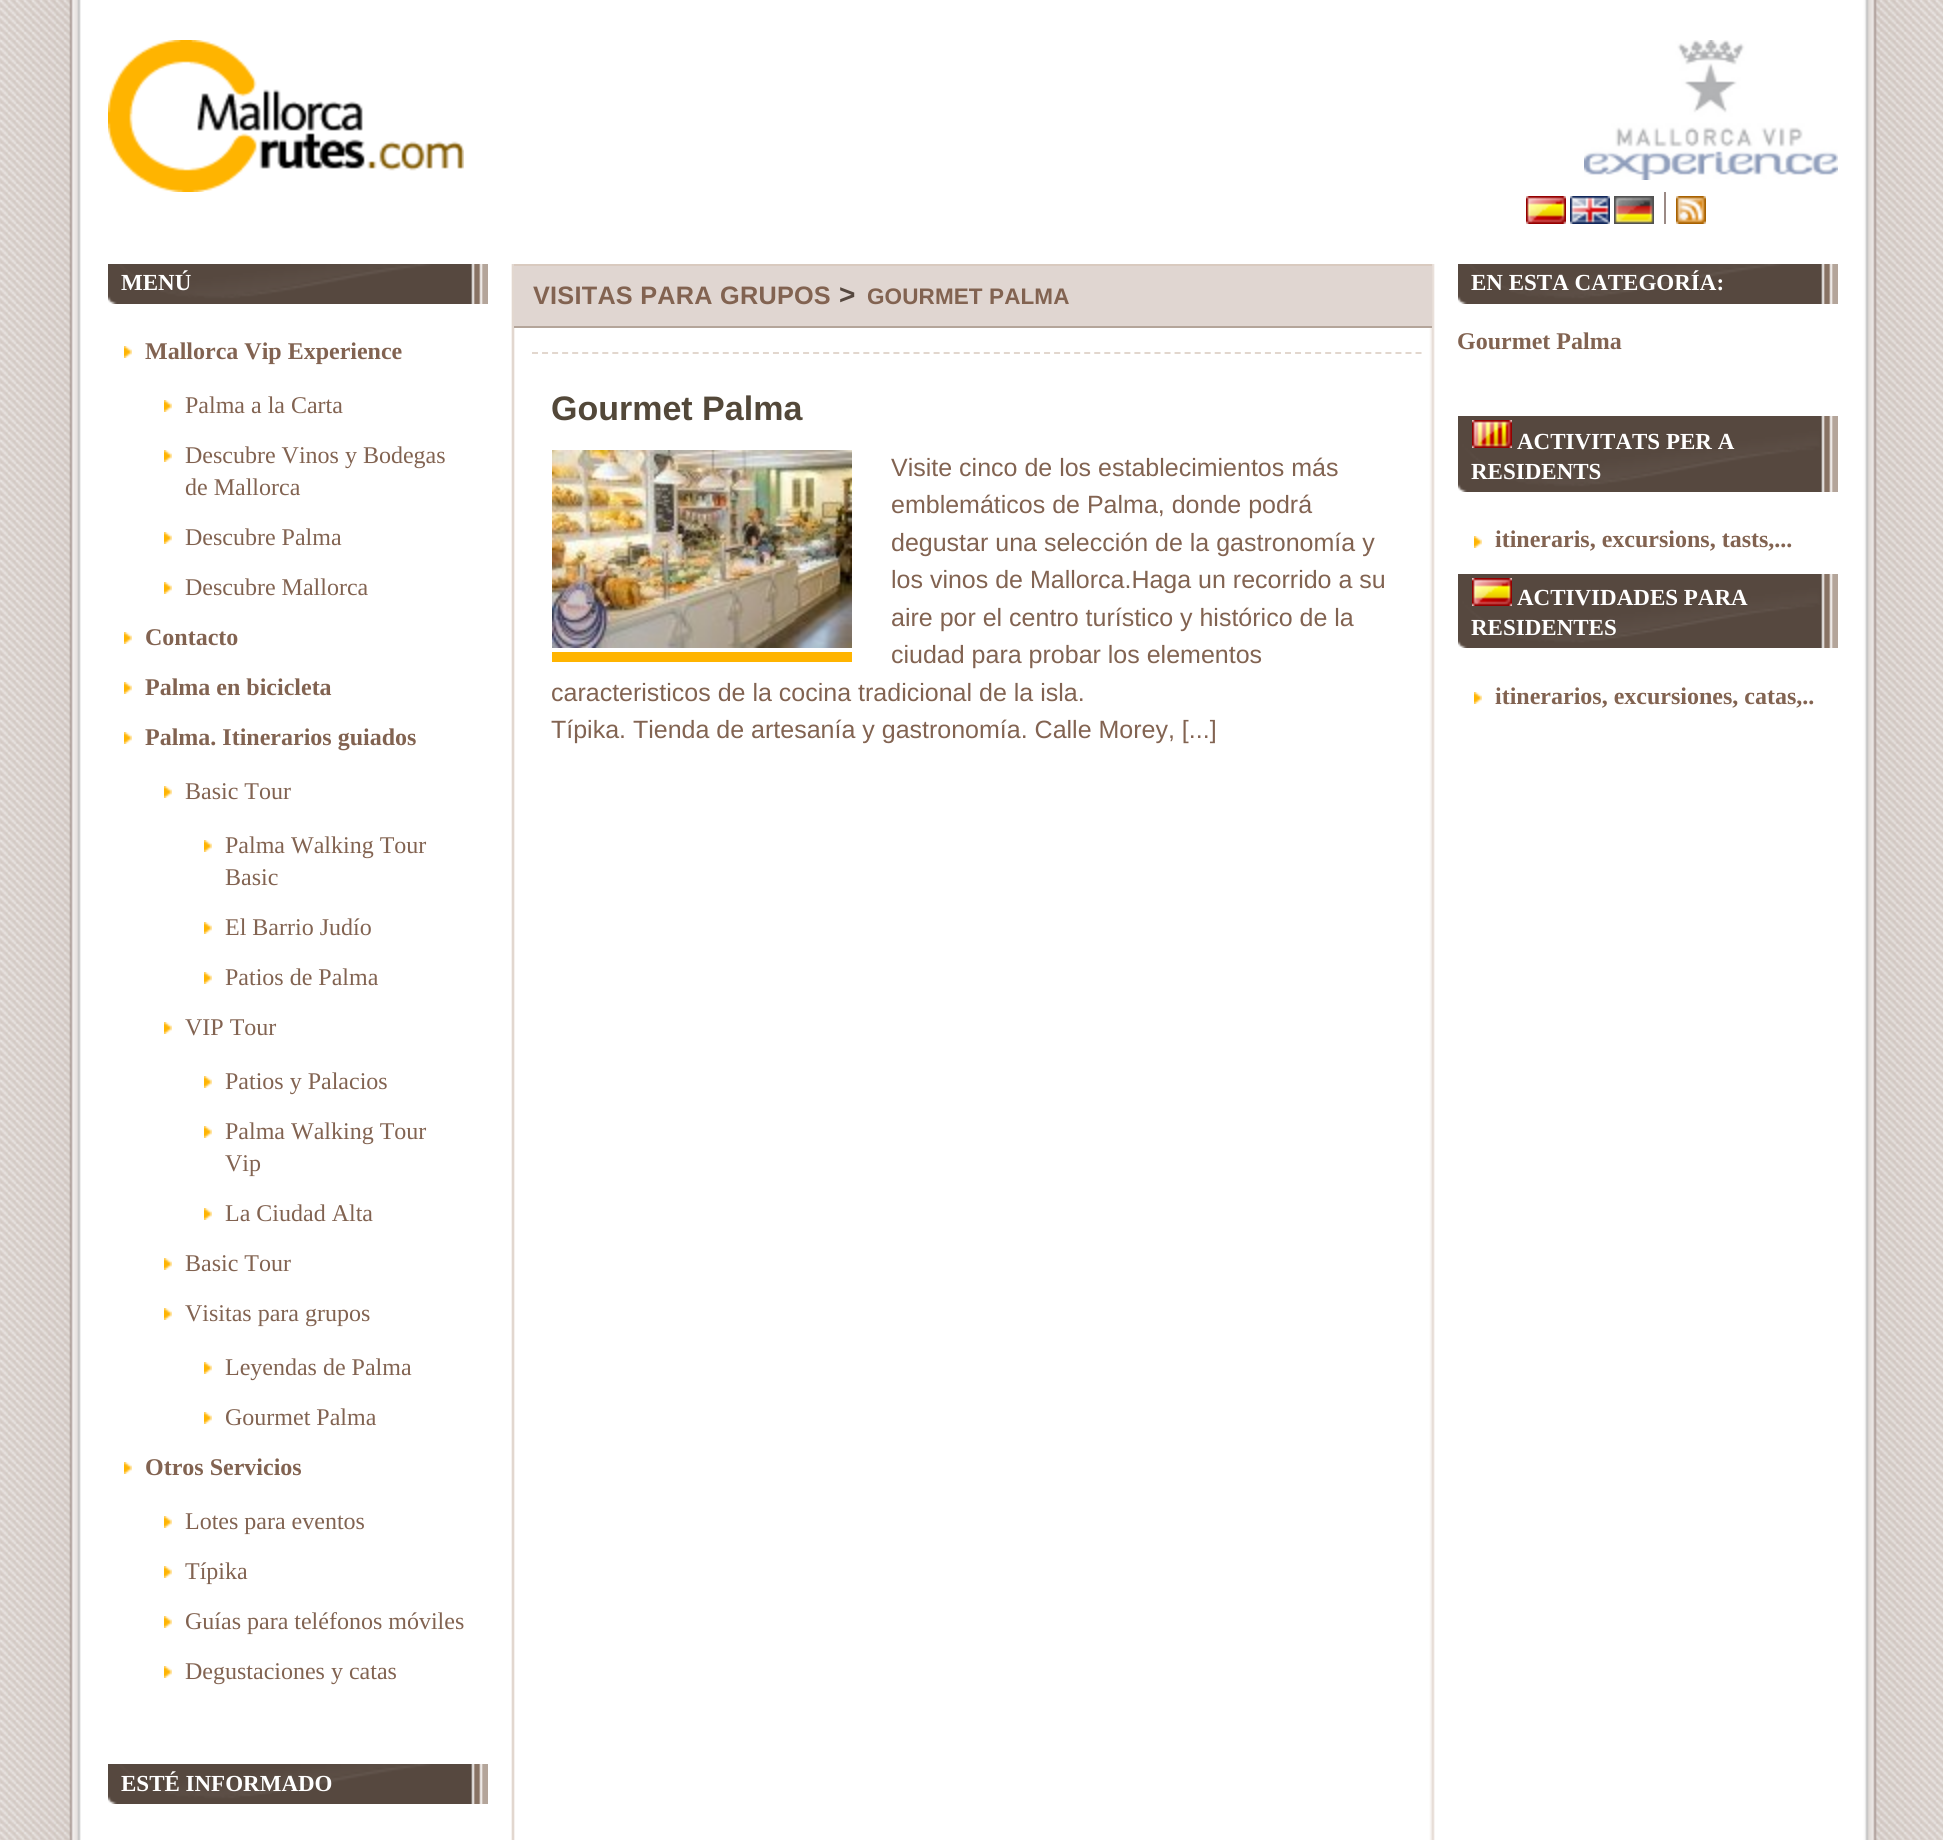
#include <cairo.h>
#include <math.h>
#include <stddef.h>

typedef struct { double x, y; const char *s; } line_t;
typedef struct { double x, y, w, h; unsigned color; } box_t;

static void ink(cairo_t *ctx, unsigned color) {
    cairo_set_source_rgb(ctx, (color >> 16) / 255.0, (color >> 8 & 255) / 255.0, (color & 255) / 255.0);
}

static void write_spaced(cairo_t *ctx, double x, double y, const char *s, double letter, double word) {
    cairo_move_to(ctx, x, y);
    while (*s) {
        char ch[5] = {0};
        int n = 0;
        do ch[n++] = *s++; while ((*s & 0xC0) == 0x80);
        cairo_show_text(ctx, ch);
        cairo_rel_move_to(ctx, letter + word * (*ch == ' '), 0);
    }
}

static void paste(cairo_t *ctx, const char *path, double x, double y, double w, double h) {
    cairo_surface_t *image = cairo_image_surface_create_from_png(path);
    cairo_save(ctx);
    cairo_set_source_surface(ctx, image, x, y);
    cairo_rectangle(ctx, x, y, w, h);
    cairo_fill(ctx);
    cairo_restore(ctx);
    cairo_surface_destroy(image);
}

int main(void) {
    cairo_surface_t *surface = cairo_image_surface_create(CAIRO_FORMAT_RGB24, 1943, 1840);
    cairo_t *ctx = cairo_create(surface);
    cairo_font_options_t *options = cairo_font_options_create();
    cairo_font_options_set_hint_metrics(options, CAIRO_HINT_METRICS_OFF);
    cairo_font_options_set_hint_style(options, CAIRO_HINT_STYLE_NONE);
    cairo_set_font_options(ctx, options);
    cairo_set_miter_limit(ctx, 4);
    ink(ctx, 0xFFFFFF);
    cairo_paint(ctx);
    paste(ctx, "media/1.png", 0, 0, 1943, 1840);
    paste(ctx, "media/2.png", 0, 0, 1943, 1840);
    paste(ctx, "media/3.png", 108, 40, 356, 152);
    paste(ctx, "media/4.png", 1526, 196, 40, 28);
    paste(ctx, "media/5.png", 1570, 196, 40, 28);
    paste(ctx, "media/6.png", 1614, 196, 40, 28);
    ink(ctx, 0x9B8A85);
    cairo_rectangle(ctx, 1664, 192, 2, 32);
    cairo_fill(ctx);
    paste(ctx, "media/7.png", 1676, 196, 30, 28);
    paste(ctx, "media/8.png", 1584, 40, 254, 140);
    paste(ctx, "media/9.png", 511, 264, 924, 1576);
    paste(ctx, "media/10.png", 108, 264, 380, 40);
    cairo_select_font_face(ctx, "Liberation Serif", CAIRO_FONT_SLANT_NORMAL, CAIRO_FONT_WEIGHT_BOLD);
    cairo_set_font_size(ctx, 23);
    ink(ctx, 0xFFFFFF);
    cairo_move_to(ctx, 121, 290);
    cairo_show_text(ctx, "MENÚ");
    paste(ctx, "media/11.png", 124, 346, 8, 12);
    cairo_set_font_size(ctx, 24);
    ink(ctx, 0x826351);
    cairo_move_to(ctx, 145, 359);
    cairo_show_text(ctx, "Mallorca Vip Experience");
    paste(ctx, "media/11.png", 164, 400, 8, 12);
    cairo_select_font_face(ctx, "Liberation Serif", CAIRO_FONT_SLANT_NORMAL, CAIRO_FONT_WEIGHT_NORMAL);
    cairo_move_to(ctx, 185, 413);
    cairo_show_text(ctx, "Palma a la Carta");
    paste(ctx, "media/11.png", 164, 450, 8, 12);
    cairo_move_to(ctx, 185, 463);
    cairo_show_text(ctx, "Descubre Vinos y Bodegas");
    cairo_move_to(ctx, 185, 495);
    cairo_show_text(ctx, "de Mallorca");
    paste(ctx, "media/11.png", 164, 532, 8, 12);
    cairo_move_to(ctx, 185, 545);
    cairo_show_text(ctx, "Descubre Palma");
    paste(ctx, "media/11.png", 164, 582, 8, 12);
    cairo_move_to(ctx, 185, 595);
    cairo_show_text(ctx, "Descubre Mallorca");
    paste(ctx, "media/11.png", 124, 632, 8, 12);
    cairo_select_font_face(ctx, "Liberation Serif", CAIRO_FONT_SLANT_NORMAL, CAIRO_FONT_WEIGHT_BOLD);
    cairo_move_to(ctx, 145, 645);
    cairo_show_text(ctx, "Contacto");
    paste(ctx, "media/11.png", 124, 682, 8, 12);
    cairo_move_to(ctx, 145, 695);
    cairo_show_text(ctx, "Palma en bicicleta");
    paste(ctx, "media/11.png", 124, 732, 8, 12);
    cairo_move_to(ctx, 145, 745);
    cairo_show_text(ctx, "Palma. Itinerarios guiados");
    paste(ctx, "media/11.png", 164, 786, 8, 12);
    cairo_select_font_face(ctx, "Liberation Serif", CAIRO_FONT_SLANT_NORMAL, CAIRO_FONT_WEIGHT_NORMAL);
    cairo_move_to(ctx, 185, 799);
    cairo_show_text(ctx, "Basic Tour");
    paste(ctx, "media/11.png", 204, 840, 8, 12);
    cairo_move_to(ctx, 225, 853);
    cairo_show_text(ctx, "Palma Walking Tour");
    cairo_move_to(ctx, 225, 885);
    cairo_show_text(ctx, "Basic");
    paste(ctx, "media/11.png", 204, 922, 8, 12);
    cairo_move_to(ctx, 225, 935);
    cairo_show_text(ctx, "El Barrio Judío");
    paste(ctx, "media/11.png", 204, 972, 8, 12);
    cairo_move_to(ctx, 225, 985);
    cairo_show_text(ctx, "Patios de Palma");
    paste(ctx, "media/11.png", 164, 1022, 8, 12);
    cairo_move_to(ctx, 185, 1035);
    cairo_show_text(ctx, "VIP Tour");
    paste(ctx, "media/11.png", 204, 1076, 8, 12);
    cairo_move_to(ctx, 225, 1089);
    cairo_show_text(ctx, "Patios y Palacios");
    paste(ctx, "media/11.png", 204, 1126, 8, 12);
    cairo_move_to(ctx, 225, 1139);
    cairo_show_text(ctx, "Palma Walking Tour");
    cairo_move_to(ctx, 225, 1171);
    cairo_show_text(ctx, "Vip");
    paste(ctx, "media/11.png", 204, 1208, 8, 12);
    cairo_move_to(ctx, 225, 1221);
    cairo_show_text(ctx, "La Ciudad Alta");
    paste(ctx, "media/11.png", 164, 1258, 8, 12);
    cairo_move_to(ctx, 185, 1271);
    cairo_show_text(ctx, "Basic Tour");
    paste(ctx, "media/11.png", 164, 1308, 8, 12);
    cairo_move_to(ctx, 185, 1321);
    cairo_show_text(ctx, "Visitas para grupos");
    paste(ctx, "media/11.png", 204, 1362, 8, 12);
    cairo_move_to(ctx, 225, 1375);
    cairo_show_text(ctx, "Leyendas de Palma");
    paste(ctx, "media/11.png", 204, 1412, 8, 12);
    cairo_move_to(ctx, 225, 1425);
    cairo_show_text(ctx, "Gourmet Palma");
    paste(ctx, "media/11.png", 124, 1462, 8, 12);
    cairo_select_font_face(ctx, "Liberation Serif", CAIRO_FONT_SLANT_NORMAL, CAIRO_FONT_WEIGHT_BOLD);
    cairo_move_to(ctx, 145, 1475);
    cairo_show_text(ctx, "Otros Servicios");
    paste(ctx, "media/11.png", 164, 1516, 8, 12);
    cairo_select_font_face(ctx, "Liberation Serif", CAIRO_FONT_SLANT_NORMAL, CAIRO_FONT_WEIGHT_NORMAL);
    cairo_move_to(ctx, 185, 1529);
    cairo_show_text(ctx, "Lotes para eventos");
    paste(ctx, "media/11.png", 164, 1566, 8, 12);
    cairo_move_to(ctx, 185, 1579);
    cairo_show_text(ctx, "Típika");
    paste(ctx, "media/11.png", 164, 1616, 8, 12);
    cairo_move_to(ctx, 185, 1629);
    cairo_show_text(ctx, "Guías para teléfonos móviles");
    paste(ctx, "media/11.png", 164, 1666, 8, 12);
    cairo_move_to(ctx, 185, 1679);
    cairo_show_text(ctx, "Degustaciones y catas");
    paste(ctx, "media/10.png", 108, 1764, 380, 40);
    cairo_select_font_face(ctx, "Liberation Serif", CAIRO_FONT_SLANT_NORMAL, CAIRO_FONT_WEIGHT_BOLD);
    cairo_set_font_size(ctx, 23);
    ink(ctx, 0xFFFFFF);
    cairo_move_to(ctx, 121, 1791);
    cairo_show_text(ctx, "ESTÉ INFORMADO");
    {
        static const box_t items[] = {
            {514, 266, 918, 60, 0xE0D6D1},
            {514, 264, 918, 2, 0xD9CABF},
            {514, 326, 918, 2, 0xB4A59A},
        };
        for (size_t i = 0; i < sizeof items / sizeof *items; i++) {
            ink(ctx, items[i].color);
            cairo_rectangle(ctx, items[i].x, items[i].y, items[i].w, items[i].h);
            cairo_fill(ctx);
        }
    }
    cairo_select_font_face(ctx, "Liberation Sans", CAIRO_FONT_SLANT_NORMAL, CAIRO_FONT_WEIGHT_BOLD);
    cairo_set_font_size(ctx, 25.25);
    ink(ctx, 0x826351);
    write_spaced(ctx, 533, 304, "VISITAS PARA GRUPOS", 0.25, 0);
    cairo_set_font_size(ctx, 28);
    ink(ctx, 0x56483F);
    write_spaced(ctx, 839, 304, ">", 2, 0);
    cairo_set_font_size(ctx, 22.5);
    ink(ctx, 0x826351);
    write_spaced(ctx, 867, 304, "GOURMET PALMA", 0.1, 0);
    cairo_new_path(ctx);
    cairo_move_to(ctx, 532, 353);
    cairo_line_to(ctx, 1422, 353);
    ink(ctx, 0xE2D7CE);
    cairo_set_dash(ctx, (double[]){6, 4.04}, 2, 0);
    cairo_stroke(ctx);
    cairo_set_font_size(ctx, 34);
    ink(ctx, 0x534839);
    cairo_move_to(ctx, 551, 420);
    cairo_show_text(ctx, "Gourmet Palma");
    ink(ctx, 0xFFB400);
    cairo_rectangle(ctx, 552, 652, 300, 10);
    cairo_fill(ctx);
    paste(ctx, "media/12.png", 552, 450, 300, 198);
    cairo_select_font_face(ctx, "Liberation Sans", CAIRO_FONT_SLANT_NORMAL, CAIRO_FONT_WEIGHT_NORMAL);
    cairo_set_font_size(ctx, 25);
    ink(ctx, 0x826351);
    {
        static const line_t items[] = {
            {891, 476, "Visite cinco de los establecimientos más"},
            {891, 513, "emblemáticos de Palma, donde podrá"},
            {891, 551, "degustar una selección de la gastronomía y"},
            {891, 588, "los vinos de Mallorca.Haga un recorrido a su"},
            {891, 626, "aire por el centro turístico y histórico de la"},
            {891, 663, "ciudad para probar los elementos"},
            {551, 701, "caracteristicos de la cocina tradicional de la isla."},
            {551, 738, "Típika. Tienda de artesanía y gastronomía. Calle Morey, [...]"},
        };
        for (size_t i = 0; i < sizeof items / sizeof *items; i++) {
            cairo_move_to(ctx, items[i].x, items[i].y);
            cairo_show_text(ctx, items[i].s);
        }
    }
    paste(ctx, "media/10.png", 1458, 264, 380, 40);
    cairo_select_font_face(ctx, "Liberation Serif", CAIRO_FONT_SLANT_NORMAL, CAIRO_FONT_WEIGHT_BOLD);
    cairo_set_font_size(ctx, 23);
    ink(ctx, 0xFFFFFF);
    cairo_move_to(ctx, 1471, 290);
    cairo_show_text(ctx, "EN ESTA CATEGORÍA:");
    cairo_set_font_size(ctx, 24);
    ink(ctx, 0x826351);
    cairo_move_to(ctx, 1457, 349);
    cairo_show_text(ctx, "Gourmet Palma");
    paste(ctx, "media/13.png", 1458, 416, 380, 76);
    paste(ctx, "media/14.png", 1472, 420, 40, 28);
    cairo_set_font_size(ctx, 23);
    ink(ctx, 0xFFFFFF);
    cairo_move_to(ctx, 1517, 449);
    cairo_show_text(ctx, "ACTIVITATS PER A");
    cairo_move_to(ctx, 1471, 479);
    cairo_show_text(ctx, "RESIDENTS");
    paste(ctx, "media/11.png", 1474, 536, 8, 12);
    cairo_set_font_size(ctx, 24);
    ink(ctx, 0x826351);
    cairo_move_to(ctx, 1495, 547);
    cairo_show_text(ctx, "itineraris, excursions, tasts,...");
    paste(ctx, "media/15.png", 1458, 574, 380, 74);
    paste(ctx, "media/4.png", 1472, 578, 40, 28);
    cairo_set_font_size(ctx, 23);
    ink(ctx, 0xFFFFFF);
    cairo_move_to(ctx, 1517, 605);
    cairo_show_text(ctx, "ACTIVIDADES PARA");
    cairo_move_to(ctx, 1471, 635);
    cairo_show_text(ctx, "RESIDENTES");
    paste(ctx, "media/11.png", 1474, 692, 8, 12);
    cairo_set_font_size(ctx, 24);
    ink(ctx, 0x826351);
    cairo_move_to(ctx, 1495, 704);
    cairo_show_text(ctx, "itinerarios, excursiones, catas,..");
    cairo_surface_write_to_png(surface, "image.png");
    cairo_font_options_destroy(options);
    cairo_destroy(ctx);
    cairo_surface_destroy(surface);
    return 0;
}
